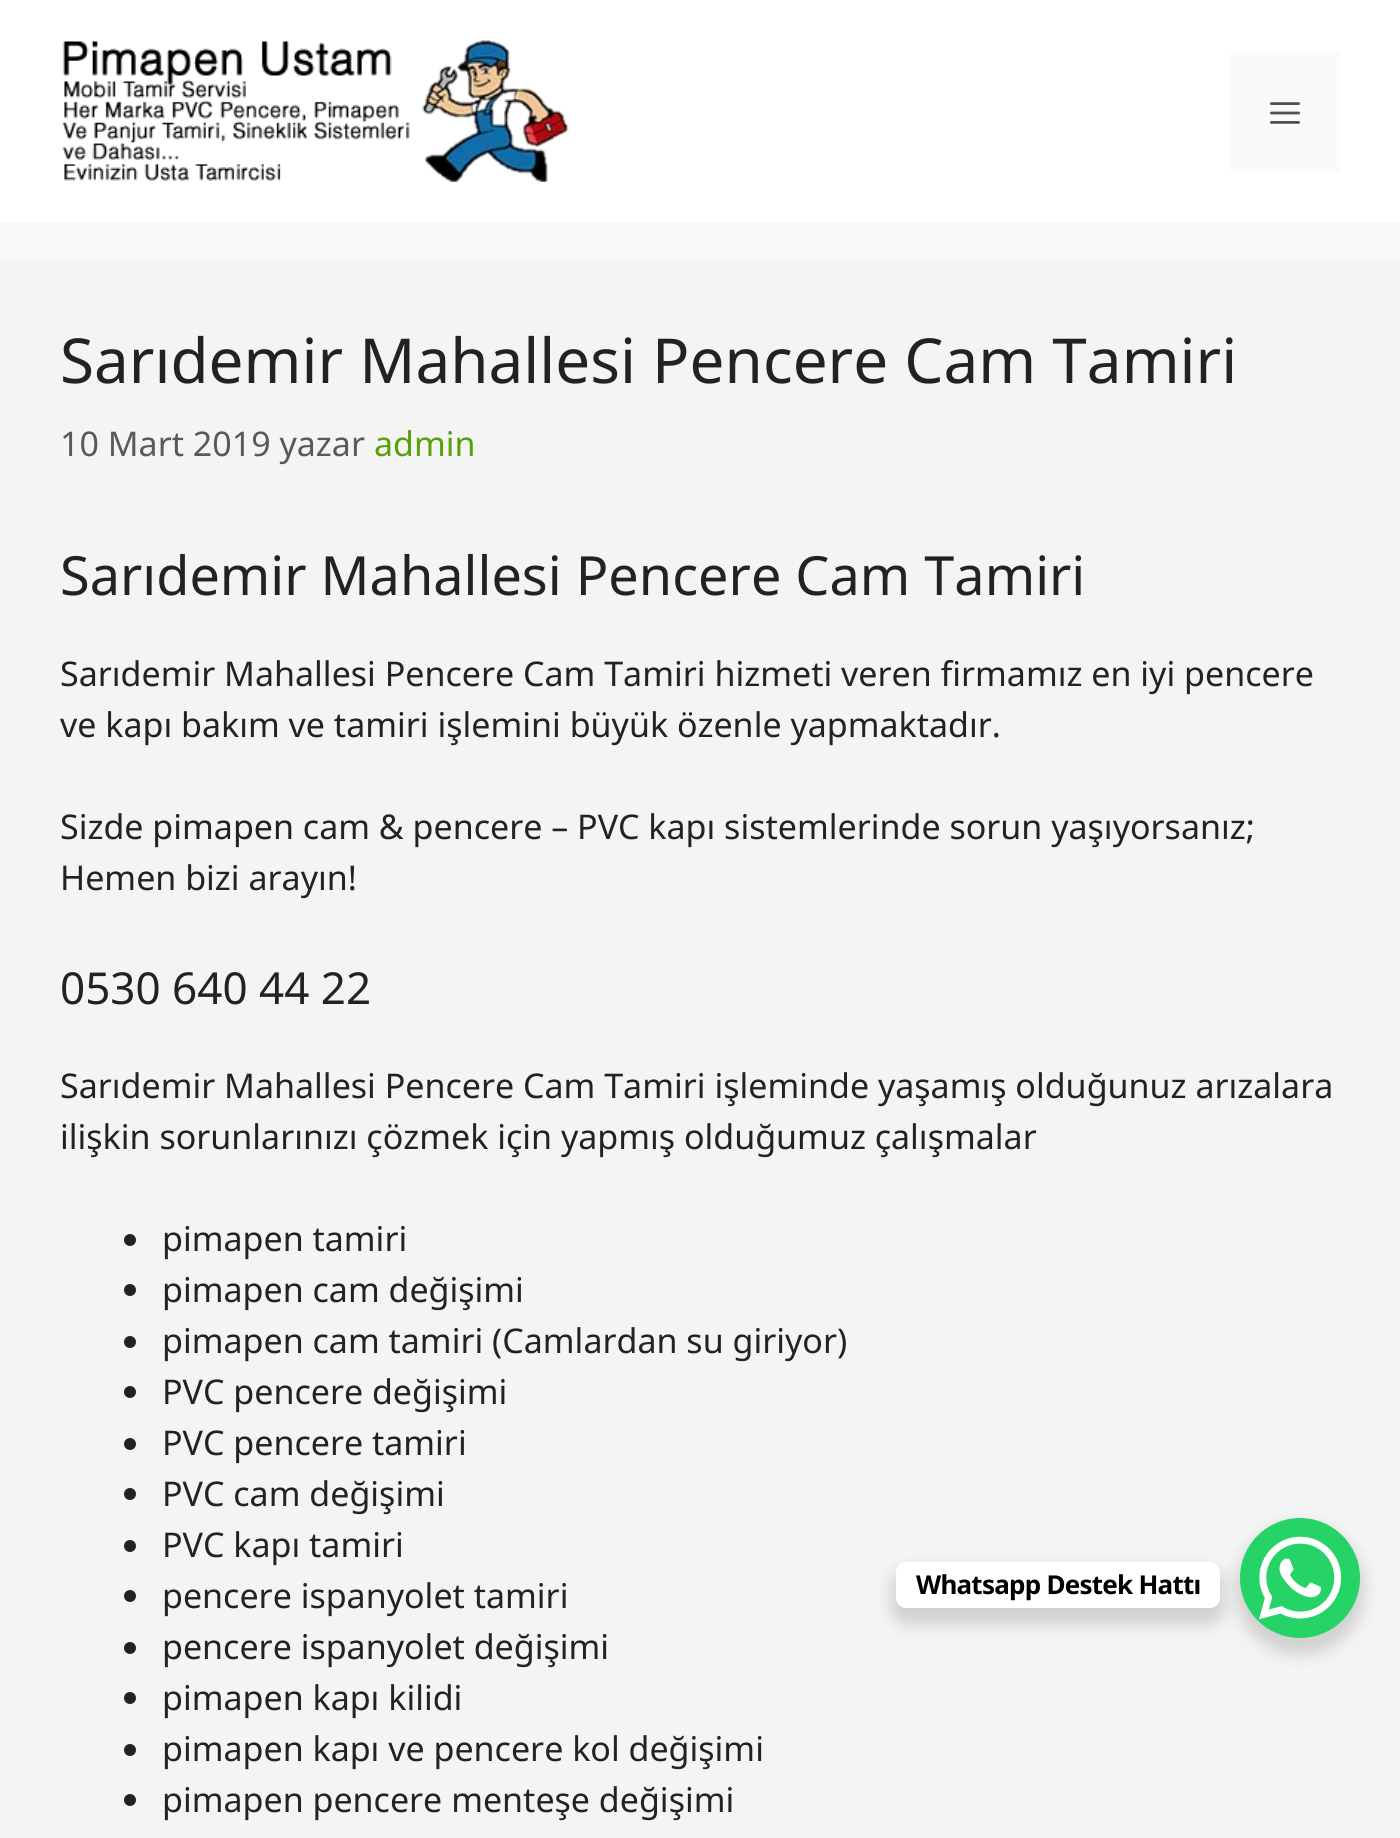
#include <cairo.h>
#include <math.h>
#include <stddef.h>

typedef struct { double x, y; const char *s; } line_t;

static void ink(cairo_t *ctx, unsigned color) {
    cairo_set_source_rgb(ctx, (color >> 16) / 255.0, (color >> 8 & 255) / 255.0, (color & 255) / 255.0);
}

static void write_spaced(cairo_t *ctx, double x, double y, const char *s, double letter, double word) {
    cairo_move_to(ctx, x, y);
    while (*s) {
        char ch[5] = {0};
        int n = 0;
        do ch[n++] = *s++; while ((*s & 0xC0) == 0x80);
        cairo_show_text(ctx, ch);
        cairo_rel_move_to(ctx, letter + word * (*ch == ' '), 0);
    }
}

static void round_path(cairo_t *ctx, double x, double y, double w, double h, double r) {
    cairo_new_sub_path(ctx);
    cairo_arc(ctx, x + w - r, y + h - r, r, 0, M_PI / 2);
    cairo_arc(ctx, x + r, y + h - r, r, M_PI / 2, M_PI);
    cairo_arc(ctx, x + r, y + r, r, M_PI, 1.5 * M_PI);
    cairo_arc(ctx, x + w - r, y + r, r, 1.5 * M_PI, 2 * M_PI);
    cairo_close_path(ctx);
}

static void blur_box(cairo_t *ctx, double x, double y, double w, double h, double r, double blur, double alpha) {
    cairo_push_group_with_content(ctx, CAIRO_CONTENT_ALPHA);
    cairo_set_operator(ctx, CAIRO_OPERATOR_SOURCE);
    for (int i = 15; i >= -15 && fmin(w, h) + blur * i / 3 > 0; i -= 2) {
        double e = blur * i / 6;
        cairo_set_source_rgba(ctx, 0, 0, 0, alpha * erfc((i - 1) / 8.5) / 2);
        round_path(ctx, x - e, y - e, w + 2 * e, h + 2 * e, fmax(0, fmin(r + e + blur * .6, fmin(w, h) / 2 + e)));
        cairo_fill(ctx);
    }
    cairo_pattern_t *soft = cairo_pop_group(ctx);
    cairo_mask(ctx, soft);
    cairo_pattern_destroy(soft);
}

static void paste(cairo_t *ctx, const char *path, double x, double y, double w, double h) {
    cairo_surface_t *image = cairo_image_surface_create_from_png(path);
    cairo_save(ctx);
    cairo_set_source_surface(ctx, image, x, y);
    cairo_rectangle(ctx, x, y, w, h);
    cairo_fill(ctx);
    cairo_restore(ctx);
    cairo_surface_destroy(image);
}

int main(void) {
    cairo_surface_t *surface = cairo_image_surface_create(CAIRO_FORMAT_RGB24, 1400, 1838);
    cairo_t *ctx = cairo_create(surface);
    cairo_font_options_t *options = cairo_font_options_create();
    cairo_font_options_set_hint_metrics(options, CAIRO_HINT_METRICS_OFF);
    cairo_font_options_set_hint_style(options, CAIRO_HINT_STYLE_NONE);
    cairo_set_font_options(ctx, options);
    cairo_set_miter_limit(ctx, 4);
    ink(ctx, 0xF7F8F9);
    cairo_paint(ctx);
    ink(ctx, 0xFFFFFF);
    cairo_rectangle(ctx, 0, 0, 1400, 222);
    cairo_fill(ctx);
    paste(ctx, "media/1.png", 62, 40, 507, 142);
    ink(ctx, 0xFAFAFA);
    cairo_rectangle(ctx, 1230, 52, 110, 120);
    cairo_fill(ctx);
    paste(ctx, "media/2.png", 1270, 102, 30, 22);
    ink(ctx, 0xF4F4F4);
    cairo_rectangle(ctx, 0, 262, 1400, 1576);
    cairo_fill(ctx);
    cairo_select_font_face(ctx, "Noto Sans", CAIRO_FONT_SLANT_NORMAL, CAIRO_FONT_WEIGHT_NORMAL);
    cairo_set_font_size(ctx, 62);
    ink(ctx, 0x222222);
    cairo_move_to(ctx, 60, 383);
    cairo_show_text(ctx, "Sarıdemir Mahallesi Pencere Cam Tamiri");
    cairo_set_font_size(ctx, 34);
    ink(ctx, 0x595959);
    cairo_move_to(ctx, 60, 456);
    cairo_show_text(ctx, "10 Mart 2019 yazar");
    ink(ctx, 0x599F08);
    cairo_move_to(ctx, 374, 456);
    cairo_show_text(ctx, "admin");
    cairo_set_font_size(ctx, 54);
    ink(ctx, 0x222222);
    cairo_move_to(ctx, 60, 595);
    cairo_show_text(ctx, "Sarıdemir Mahallesi Pencere Cam Tamiri");
    cairo_set_font_size(ctx, 34);
    {
        static const line_t items[] = {
            {60, 686, "Sarıdemir Mahallesi Pencere Cam Tamiri hizmeti veren firmamız en iyi pencere"},
            {60, 737, "ve kapı bakım ve tamiri işlemini büyük özenle yapmaktadır."},
            {60, 839, "Sizde pimapen cam & pencere – PVC kapı sistemlerinde sorun yaşıyorsanız;"},
            {60, 890, "Hemen bizi arayın!"},
        };
        for (size_t i = 0; i < sizeof items / sizeof *items; i++) {
            cairo_move_to(ctx, items[i].x, items[i].y);
            cairo_show_text(ctx, items[i].s);
        }
    }
    cairo_set_font_size(ctx, 44);
    cairo_move_to(ctx, 60, 1004);
    cairo_show_text(ctx, "0530 640 44 22");
    cairo_set_font_size(ctx, 34);
    cairo_move_to(ctx, 60, 1098);
    cairo_show_text(ctx, "Sarıdemir Mahallesi Pencere Cam Tamiri işleminde yaşamış olduğunuz arızalara");
    cairo_move_to(ctx, 60, 1149);
    cairo_show_text(ctx, "ilişkin sorunlarınızı çözmek için yapmış olduğumuz çalışmalar");
    cairo_new_path(ctx);
    cairo_arc(ctx, 130, 1240, 6, 0, 2 * M_PI);
    cairo_fill(ctx);
    cairo_move_to(ctx, 162, 1251);
    cairo_show_text(ctx, "pimapen tamiri");
    cairo_new_path(ctx);
    cairo_arc(ctx, 130, 1290, 6, 0, 2 * M_PI);
    cairo_fill(ctx);
    cairo_move_to(ctx, 162, 1302);
    cairo_show_text(ctx, "pimapen cam değişimi");
    cairo_new_path(ctx);
    cairo_arc(ctx, 130, 1342, 6, 0, 2 * M_PI);
    cairo_fill(ctx);
    cairo_move_to(ctx, 162, 1353);
    cairo_show_text(ctx, "pimapen cam tamiri (Camlardan su giriyor)");
    cairo_new_path(ctx);
    cairo_arc(ctx, 130, 1392, 6, 0, 2 * M_PI);
    cairo_fill(ctx);
    cairo_move_to(ctx, 162, 1404);
    cairo_show_text(ctx, "PVC pencere değişimi");
    cairo_new_path(ctx);
    cairo_arc(ctx, 130, 1444, 6, 0, 2 * M_PI);
    cairo_fill(ctx);
    cairo_move_to(ctx, 162, 1455);
    cairo_show_text(ctx, "PVC pencere tamiri");
    cairo_new_path(ctx);
    cairo_arc(ctx, 130, 1494, 6, 0, 2 * M_PI);
    cairo_fill(ctx);
    cairo_move_to(ctx, 162, 1506);
    cairo_show_text(ctx, "PVC cam değişimi");
    cairo_new_path(ctx);
    cairo_arc(ctx, 130, 1546, 6, 0, 2 * M_PI);
    cairo_fill(ctx);
    cairo_move_to(ctx, 162, 1557);
    cairo_show_text(ctx, "PVC kapı tamiri");
    cairo_new_path(ctx);
    cairo_arc(ctx, 130, 1596, 6, 0, 2 * M_PI);
    cairo_fill(ctx);
    cairo_move_to(ctx, 162, 1608);
    cairo_show_text(ctx, "pencere ispanyolet tamiri");
    cairo_new_path(ctx);
    cairo_arc(ctx, 130, 1648, 6, 0, 2 * M_PI);
    cairo_fill(ctx);
    cairo_move_to(ctx, 162, 1659);
    cairo_show_text(ctx, "pencere ispanyolet değişimi");
    cairo_new_path(ctx);
    cairo_arc(ctx, 130, 1698, 6, 0, 2 * M_PI);
    cairo_fill(ctx);
    cairo_move_to(ctx, 162, 1710);
    cairo_show_text(ctx, "pimapen kapı kilidi");
    cairo_new_path(ctx);
    cairo_arc(ctx, 130, 1750, 6, 0, 2 * M_PI);
    cairo_fill(ctx);
    cairo_move_to(ctx, 162, 1761);
    cairo_show_text(ctx, "pimapen kapı ve pencere kol değişimi");
    cairo_new_path(ctx);
    cairo_arc(ctx, 130, 1800, 6, 0, 2 * M_PI);
    cairo_fill(ctx);
    cairo_move_to(ctx, 162, 1812);
    cairo_show_text(ctx, "pimapen pencere menteşe değişimi");
    ink(ctx, 0x000000);
    blur_box(ctx, 1236, 1526, 128, 128, 64, 8, 0.15);
    ink(ctx, 0x25D366);
    cairo_arc(ctx, 1300, 1578, 60, 0, 2 * M_PI);
    cairo_fill(ctx);
    ink(ctx, 0x000000);
    blur_box(ctx, 892, 1570, 332, 54, 14, 8, 0.15);
    ink(ctx, 0xFFFFFF);
    round_path(ctx, 896, 1562, 324, 46, 10);
    cairo_fill(ctx);
    cairo_select_font_face(ctx, "Noto Sans", CAIRO_FONT_SLANT_NORMAL, CAIRO_FONT_WEIGHT_BOLD);
    cairo_set_font_size(ctx, 26);
    ink(ctx, 0x000000);
    write_spaced(ctx, 916, 1594, "Whatsapp Destek Hattı", -0.75, 0);
    paste(ctx, "media/3.png", 1259, 1536, 83, 84);
    cairo_surface_write_to_png(surface, "image.png");
    cairo_font_options_destroy(options);
    cairo_destroy(ctx);
    cairo_surface_destroy(surface);
    return 0;
}
